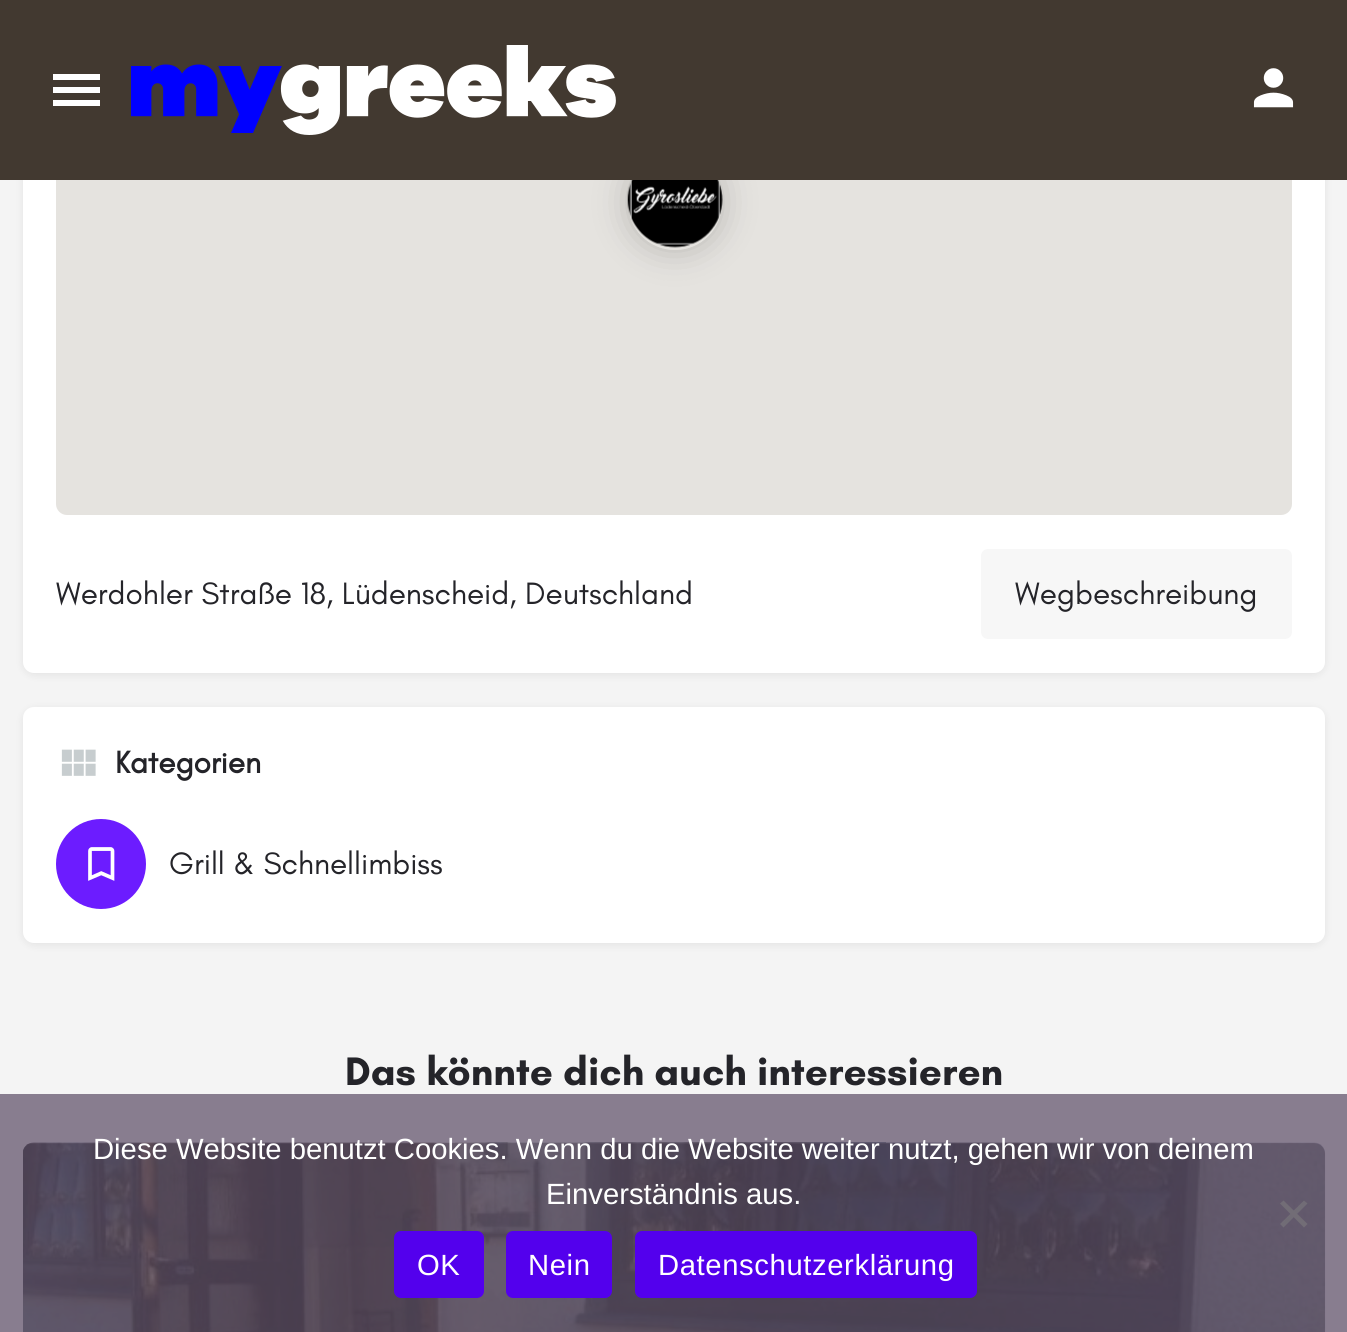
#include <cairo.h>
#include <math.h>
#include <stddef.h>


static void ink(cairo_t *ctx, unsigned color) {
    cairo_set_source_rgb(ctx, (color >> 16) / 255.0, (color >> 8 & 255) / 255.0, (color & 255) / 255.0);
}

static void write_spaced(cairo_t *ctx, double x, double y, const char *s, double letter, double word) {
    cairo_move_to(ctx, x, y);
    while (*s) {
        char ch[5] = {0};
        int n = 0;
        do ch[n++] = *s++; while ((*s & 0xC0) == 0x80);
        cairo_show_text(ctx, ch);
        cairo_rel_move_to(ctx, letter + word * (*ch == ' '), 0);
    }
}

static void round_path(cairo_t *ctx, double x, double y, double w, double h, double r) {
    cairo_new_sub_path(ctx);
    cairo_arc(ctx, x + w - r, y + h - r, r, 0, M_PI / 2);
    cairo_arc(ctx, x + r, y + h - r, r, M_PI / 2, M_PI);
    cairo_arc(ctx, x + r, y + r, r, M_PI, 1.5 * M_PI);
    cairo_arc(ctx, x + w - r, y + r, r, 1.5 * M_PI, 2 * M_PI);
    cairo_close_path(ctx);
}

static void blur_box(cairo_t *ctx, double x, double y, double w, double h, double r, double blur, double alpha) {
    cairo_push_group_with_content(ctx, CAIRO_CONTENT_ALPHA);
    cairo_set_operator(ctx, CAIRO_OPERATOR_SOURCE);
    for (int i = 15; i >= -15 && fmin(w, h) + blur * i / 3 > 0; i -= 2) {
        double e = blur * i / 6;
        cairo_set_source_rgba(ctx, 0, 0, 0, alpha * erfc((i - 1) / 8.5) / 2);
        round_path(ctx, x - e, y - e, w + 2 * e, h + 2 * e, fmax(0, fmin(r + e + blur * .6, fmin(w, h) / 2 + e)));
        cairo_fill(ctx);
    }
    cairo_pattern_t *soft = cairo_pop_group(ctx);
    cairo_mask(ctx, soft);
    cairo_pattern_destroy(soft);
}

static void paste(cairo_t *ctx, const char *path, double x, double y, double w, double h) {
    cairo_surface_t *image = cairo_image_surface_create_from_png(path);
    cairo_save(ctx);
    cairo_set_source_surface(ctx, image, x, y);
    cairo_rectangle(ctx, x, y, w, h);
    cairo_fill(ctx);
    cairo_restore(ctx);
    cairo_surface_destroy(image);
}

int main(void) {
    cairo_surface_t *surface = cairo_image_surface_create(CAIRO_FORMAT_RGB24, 1347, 1332);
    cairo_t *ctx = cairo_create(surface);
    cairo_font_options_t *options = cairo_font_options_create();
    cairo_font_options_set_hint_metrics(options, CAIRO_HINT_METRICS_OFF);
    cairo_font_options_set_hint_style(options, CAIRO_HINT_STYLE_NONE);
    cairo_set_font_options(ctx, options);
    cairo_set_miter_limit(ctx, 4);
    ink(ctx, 0xF4F4F4);
    cairo_paint(ctx);
    ink(ctx, 0x887D8F);
    cairo_rectangle(ctx, 0, 1094, 1347, 238);
    cairo_fill(ctx);
    ink(ctx, 0x000000);
    blur_box(ctx, 23, -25, 1302, 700, 11, 4.5, 0.07);
    ink(ctx, 0xFFFFFF);
    round_path(ctx, 23, -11, 1302, 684, 11);
    cairo_fill(ctx);
    ink(ctx, 0xE5E3DF);
    round_path(ctx, 56, -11, 1236, 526, 11);
    cairo_fill(ctx);
    cairo_save(ctx);
    cairo_set_fill_rule(ctx, CAIRO_FILL_RULE_EVEN_ODD);
    cairo_new_path(ctx);
    cairo_move_to(ctx, 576, 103);
    cairo_line_to(ctx, 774, 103);
    cairo_line_to(ctx, 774, 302);
    cairo_line_to(ctx, 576, 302);
    cairo_close_path(ctx);
    cairo_move_to(ctx, 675, 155);
    cairo_curve_to(ctx, 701, 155, 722, 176, 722, 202);
    cairo_line_to(ctx, 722, 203);
    cairo_curve_to(ctx, 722, 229, 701, 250, 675, 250);
    cairo_curve_to(ctx, 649, 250, 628, 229, 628, 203);
    cairo_line_to(ctx, 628, 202);
    cairo_curve_to(ctx, 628, 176, 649, 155, 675, 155);
    cairo_close_path(ctx);
    cairo_clip(ctx);
    ink(ctx, 0x000000);
    blur_box(ctx, 628, 155, 94, 95, 47, 17, 0.2);
    cairo_restore(ctx);
    ink(ctx, 0x423930);
    cairo_rectangle(ctx, 0, 0, 1347, 180);
    cairo_fill(ctx);
    ink(ctx, 0xFFFFFF);
    cairo_new_path(ctx);
    cairo_move_to(ctx, 53, 74);
    cairo_line_to(ctx, 100, 74);
    cairo_line_to(ctx, 100, 80);
    cairo_line_to(ctx, 53, 80);
    cairo_close_path(ctx);
    cairo_move_to(ctx, 53, 93);
    cairo_line_to(ctx, 53, 87);
    cairo_line_to(ctx, 100, 87);
    cairo_line_to(ctx, 100, 93);
    cairo_close_path(ctx);
    cairo_move_to(ctx, 53, 106);
    cairo_line_to(ctx, 53, 100);
    cairo_line_to(ctx, 100, 100);
    cairo_line_to(ctx, 100, 106);
    cairo_close_path(ctx);
    cairo_fill(ctx);
    paste(ctx, "media/1.png", 131, 45, 485, 90);
    paste(ctx, "media/2.png", 1253, 68, 41, 40);
    paste(ctx, "media/3.png", 627, 180, 96, 68);
    cairo_select_font_face(ctx, "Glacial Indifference", CAIRO_FONT_SLANT_NORMAL, CAIRO_FONT_WEIGHT_NORMAL);
    cairo_set_font_size(ctx, 31.5);
    ink(ctx, 0x242429);
    cairo_move_to(ctx, 56, 604);
    cairo_show_text(ctx, "Werdohler Straße 18, Lüdenscheid, Deutschland");
    ink(ctx, 0xF7F7F7);
    round_path(ctx, 981, 549, 311, 90, 7);
    cairo_fill(ctx);
    ink(ctx, 0x242429);
    cairo_move_to(ctx, 1015, 604);
    cairo_show_text(ctx, "Wegbeschreibung");
    ink(ctx, 0x000000);
    blur_box(ctx, 23, 709, 1302, 236, 11, 4.5, 0.07);
    ink(ctx, 0xFFFFFF);
    round_path(ctx, 23, 707, 1302, 236, 11);
    cairo_fill(ctx);
    paste(ctx, "media/4.png", 61, 749, 35, 27);
    cairo_select_font_face(ctx, "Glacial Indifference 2", CAIRO_FONT_SLANT_NORMAL, CAIRO_FONT_WEIGHT_BOLD);
    ink(ctx, 0x242429);
    cairo_move_to(ctx, 115, 773);
    cairo_show_text(ctx, "Kategorien");
    ink(ctx, 0x6C1CFF);
    cairo_new_path(ctx);
    cairo_arc(ctx, 101, 864, 45, 0, 2 * M_PI);
    cairo_fill(ctx);
    paste(ctx, "media/5.png", 88, 847, 27, 34);
    cairo_select_font_face(ctx, "Glacial Indifference", CAIRO_FONT_SLANT_NORMAL, CAIRO_FONT_WEIGHT_NORMAL);
    ink(ctx, 0x242429);
    cairo_move_to(ctx, 169, 874);
    cairo_show_text(ctx, "Grill & Schnellimbiss");
    cairo_select_font_face(ctx, "Glacial Indifference", CAIRO_FONT_SLANT_NORMAL, CAIRO_FONT_WEIGHT_BOLD);
    cairo_set_font_size(ctx, 40.5);
    cairo_move_to(ctx, 345, 1085);
    cairo_show_text(ctx, "Das könnte dich auch interessieren");
    paste(ctx, "media/6.png", 23, 1142, 1303, 190);
    cairo_set_source_rgba(ctx, 0.29, 0.247, 0.322, 0.4);
    cairo_new_path(ctx);
    cairo_move_to(ctx, 34, 1143);
    cairo_line_to(ctx, 1314, 1143);
    cairo_curve_to(ctx, 1320, 1143, 1325, 1148, 1325, 1154);
    cairo_line_to(ctx, 1325, 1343);
    cairo_line_to(ctx, 23, 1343);
    cairo_line_to(ctx, 23, 1154);
    cairo_curve_to(ctx, 23, 1148, 28, 1143, 34, 1143);
    cairo_close_path(ctx);
    cairo_fill(ctx);
    cairo_select_font_face(ctx, "Liberation Sans", CAIRO_FONT_SLANT_NORMAL, CAIRO_FONT_WEIGHT_NORMAL);
    cairo_set_font_size(ctx, 29.25);
    ink(ctx, 0xFFFFFF);
    cairo_move_to(ctx, 93, 1159);
    cairo_show_text(ctx, "Diese Website benutzt Cookies. Wenn du die Website weiter nutzt, gehen wir von deinem");
    cairo_move_to(ctx, 546, 1204);
    cairo_show_text(ctx, "Einverständnis aus.");
    cairo_set_source_rgba(ctx, 0.502, 0.502, 0.502, 0.5);
    cairo_new_path(ctx);
    cairo_move_to(ctx, 1304, 1200.5);
    cairo_line_to(ctx, 1307.5, 1203.5);
    cairo_line_to(ctx, 1283.5, 1227.5);
    cairo_line_to(ctx, 1280, 1224);
    cairo_close_path(ctx);
    cairo_fill(ctx);
    ink(ctx, 0x726D76);
    cairo_new_path(ctx);
    cairo_move_to(ctx, 1280, 1203.5);
    cairo_line_to(ctx, 1283.5, 1200.5);
    cairo_line_to(ctx, 1307.5, 1224);
    cairo_line_to(ctx, 1304, 1227.5);
    cairo_close_path(ctx);
    cairo_fill(ctx);
    ink(ctx, 0x5300ED);
    round_path(ctx, 394, 1231, 90, 67, 7);
    cairo_fill(ctx);
    ink(ctx, 0xFFFFFF);
    write_spaced(ctx, 417, 1275, "OK", 0.6, 0);
    ink(ctx, 0x5300ED);
    round_path(ctx, 506, 1231, 106, 67, 7);
    cairo_fill(ctx);
    ink(ctx, 0xFFFFFF);
    write_spaced(ctx, 528, 1275, "Nein", 0.6, 0);
    ink(ctx, 0x5300ED);
    round_path(ctx, 635, 1231, 342, 67, 7);
    cairo_fill(ctx);
    ink(ctx, 0xFFFFFF);
    write_spaced(ctx, 658, 1275, "Datenschutzerklärung", 0.6, 0);
    cairo_surface_write_to_png(surface, "image.png");
    cairo_font_options_destroy(options);
    cairo_destroy(ctx);
    cairo_surface_destroy(surface);
    return 0;
}
